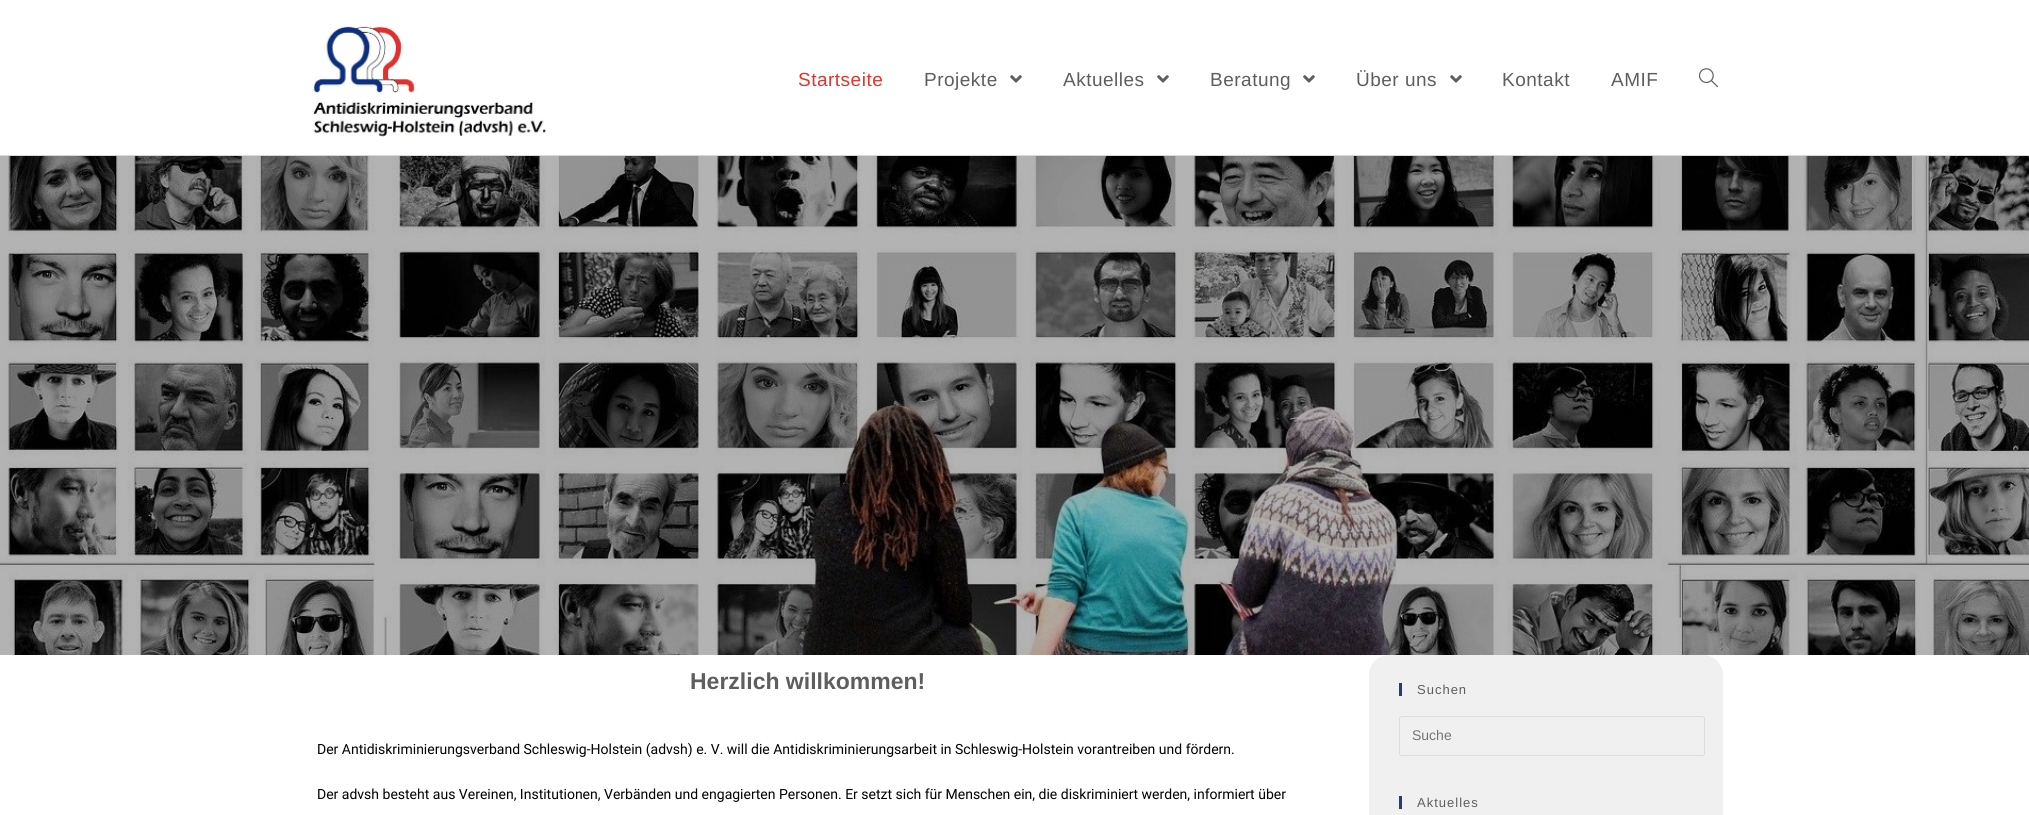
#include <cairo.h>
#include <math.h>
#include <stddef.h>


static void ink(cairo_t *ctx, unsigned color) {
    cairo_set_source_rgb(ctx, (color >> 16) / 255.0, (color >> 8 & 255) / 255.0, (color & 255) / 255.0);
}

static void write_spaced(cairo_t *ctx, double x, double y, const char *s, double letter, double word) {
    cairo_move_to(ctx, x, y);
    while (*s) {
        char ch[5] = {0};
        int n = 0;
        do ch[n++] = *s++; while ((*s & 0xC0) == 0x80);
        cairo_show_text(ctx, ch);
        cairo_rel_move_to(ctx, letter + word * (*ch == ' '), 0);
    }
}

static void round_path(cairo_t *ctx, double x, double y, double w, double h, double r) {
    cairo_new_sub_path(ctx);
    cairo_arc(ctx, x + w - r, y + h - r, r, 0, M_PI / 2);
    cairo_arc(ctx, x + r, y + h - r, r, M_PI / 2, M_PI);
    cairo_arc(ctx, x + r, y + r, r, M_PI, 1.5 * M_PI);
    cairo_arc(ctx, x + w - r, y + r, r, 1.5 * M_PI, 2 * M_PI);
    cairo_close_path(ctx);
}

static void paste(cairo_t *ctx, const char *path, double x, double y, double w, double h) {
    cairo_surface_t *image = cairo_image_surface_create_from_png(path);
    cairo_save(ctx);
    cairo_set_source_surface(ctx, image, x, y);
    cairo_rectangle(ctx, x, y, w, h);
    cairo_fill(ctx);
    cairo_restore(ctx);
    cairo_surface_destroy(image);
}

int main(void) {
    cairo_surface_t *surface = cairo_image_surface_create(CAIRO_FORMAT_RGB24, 2029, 815);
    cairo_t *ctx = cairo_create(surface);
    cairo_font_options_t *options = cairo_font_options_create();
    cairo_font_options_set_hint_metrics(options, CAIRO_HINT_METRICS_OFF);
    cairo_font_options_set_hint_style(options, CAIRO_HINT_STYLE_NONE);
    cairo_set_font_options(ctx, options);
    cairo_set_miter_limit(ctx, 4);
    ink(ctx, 0xFFFFFF);
    cairo_paint(ctx);
    ink(ctx, 0xD8D8D8);
    cairo_rectangle(ctx, 0, 155, 2029, 1);
    cairo_fill(ctx);
    paste(ctx, "media/1.png", 311, 24, 236, 113);
    cairo_select_font_face(ctx, "Liberation Sans", CAIRO_FONT_SLANT_NORMAL, CAIRO_FONT_WEIGHT_NORMAL);
    cairo_set_font_size(ctx, 19);
    ink(ctx, 0xE3342C);
    write_spaced(ctx, 798, 86, "Startseite", 0.5, 0);
    ink(ctx, 0x5E5E5E);
    write_spaced(ctx, 924, 86, "Projekte", 0.5, 0);
    paste(ctx, "media/2.png", 1010, 75, 12, 8);
    write_spaced(ctx, 1063, 86, "Aktuelles", 0.5, 0);
    paste(ctx, "media/2.png", 1157, 75, 12, 8);
    write_spaced(ctx, 1210, 86, "Beratung", 0.5, 0);
    paste(ctx, "media/2.png", 1303, 75, 12, 8);
    write_spaced(ctx, 1356, 86, "Über uns", 0.5, 0);
    paste(ctx, "media/2.png", 1450, 75, 12, 8);
    write_spaced(ctx, 1502, 86, "Kontakt", 0.5, 0);
    write_spaced(ctx, 1611, 86, "AMIF", 0.5, 0);
    paste(ctx, "media/3.png", 1699, 68, 19, 20);
    paste(ctx, "media/4.png", 0, 156, 2029, 499);
    cairo_select_font_face(ctx, "Liberation Sans", CAIRO_FONT_SLANT_NORMAL, CAIRO_FONT_WEIGHT_BOLD);
    cairo_set_font_size(ctx, 23);
    cairo_move_to(ctx, 690, 689);
    cairo_show_text(ctx, "Herzlich willkommen!");
    cairo_select_font_face(ctx, "Roboto", CAIRO_FONT_SLANT_NORMAL, CAIRO_FONT_WEIGHT_NORMAL);
    cairo_set_font_size(ctx, 14);
    ink(ctx, 0x000000);
    cairo_move_to(ctx, 317, 754);
    cairo_show_text(ctx, "Der Antidiskriminierungsverband Schleswig-Holstein (advsh) e. V. will die Antidiskriminierungsarbeit in Schleswig-Holstein vorantreiben und fördern.");
    cairo_move_to(ctx, 317, 799);
    cairo_show_text(ctx, "Der advsh besteht aus Vereinen, Institutionen, Verbänden und engagierten Personen. Er setzt sich für Menschen ein, die diskriminiert werden, informiert über");
    ink(ctx, 0xF0F0F0);
    round_path(ctx, 1369, 655, 354, 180, 20);
    cairo_fill(ctx);
    ink(ctx, 0x243C7B);
    cairo_rectangle(ctx, 1399, 683, 3, 13);
    cairo_fill(ctx);
    cairo_select_font_face(ctx, "Liberation Sans", CAIRO_FONT_SLANT_NORMAL, CAIRO_FONT_WEIGHT_NORMAL);
    cairo_set_font_size(ctx, 13);
    ink(ctx, 0x5E5E5E);
    write_spaced(ctx, 1417, 694, "Suchen", 1, 0);
    round_path(ctx, 1399.5, 716.5, 305, 39, 2.5);
    ink(ctx, 0xDDDDDD);
    cairo_set_line_width(ctx, 1);
    cairo_stroke(ctx);
    cairo_set_font_size(ctx, 14);
    ink(ctx, 0x757575);
    cairo_move_to(ctx, 1412, 740);
    cairo_show_text(ctx, "Suche");
    ink(ctx, 0x243C7B);
    cairo_rectangle(ctx, 1399, 796, 3, 13);
    cairo_fill(ctx);
    cairo_set_font_size(ctx, 13);
    ink(ctx, 0x5E5E5E);
    write_spaced(ctx, 1417, 807, "Aktuelles", 1, 0);
    cairo_surface_write_to_png(surface, "image.png");
    cairo_font_options_destroy(options);
    cairo_destroy(ctx);
    cairo_surface_destroy(surface);
    return 0;
}
